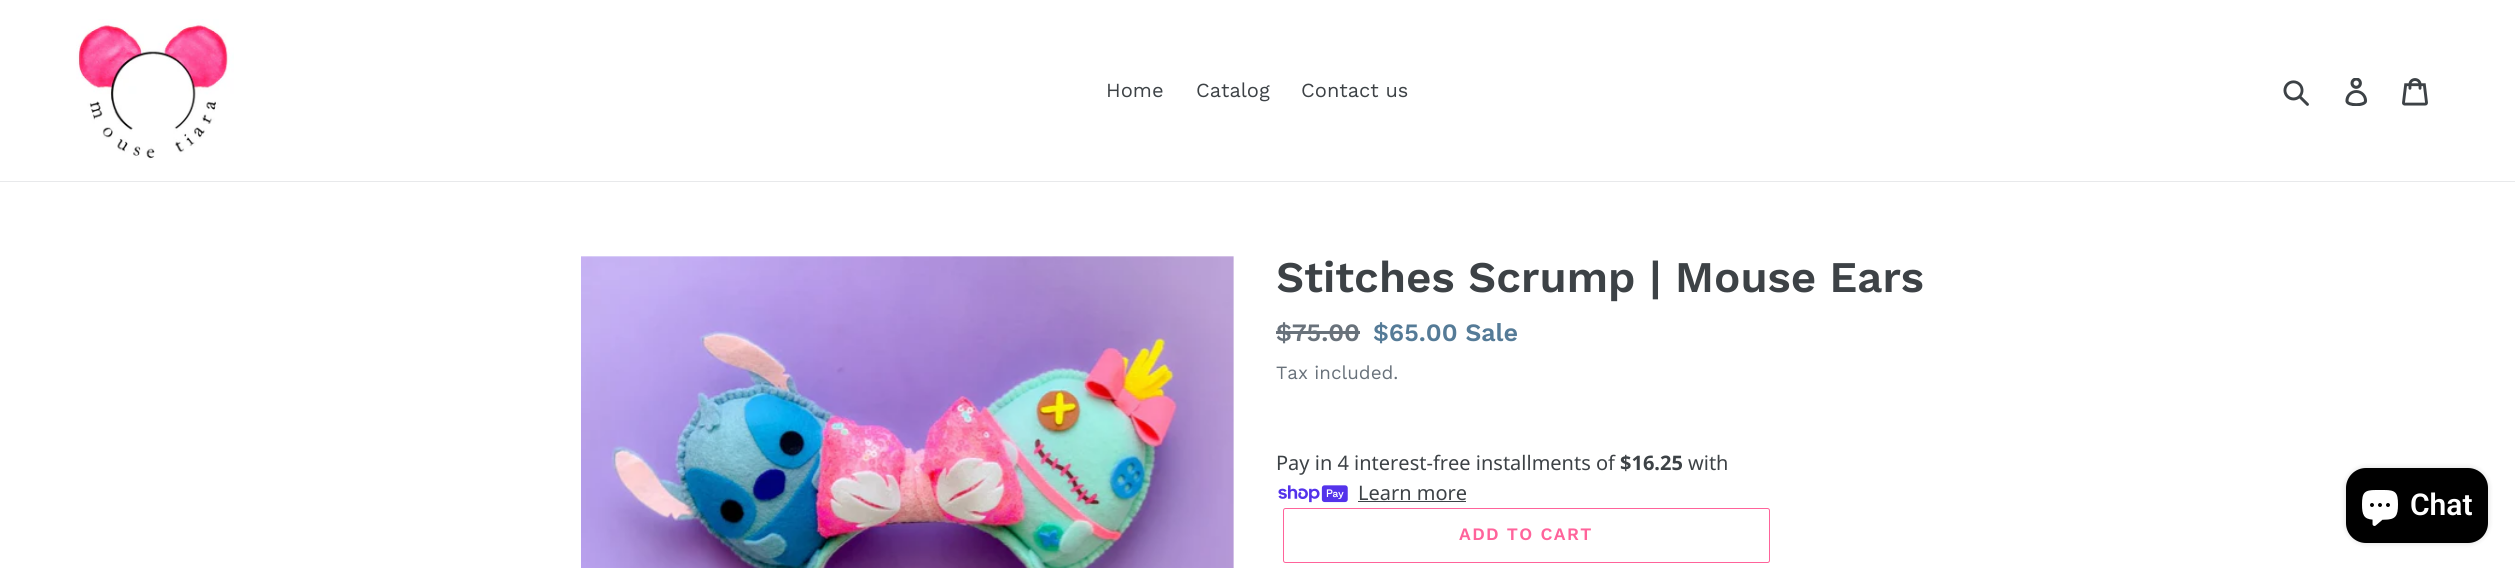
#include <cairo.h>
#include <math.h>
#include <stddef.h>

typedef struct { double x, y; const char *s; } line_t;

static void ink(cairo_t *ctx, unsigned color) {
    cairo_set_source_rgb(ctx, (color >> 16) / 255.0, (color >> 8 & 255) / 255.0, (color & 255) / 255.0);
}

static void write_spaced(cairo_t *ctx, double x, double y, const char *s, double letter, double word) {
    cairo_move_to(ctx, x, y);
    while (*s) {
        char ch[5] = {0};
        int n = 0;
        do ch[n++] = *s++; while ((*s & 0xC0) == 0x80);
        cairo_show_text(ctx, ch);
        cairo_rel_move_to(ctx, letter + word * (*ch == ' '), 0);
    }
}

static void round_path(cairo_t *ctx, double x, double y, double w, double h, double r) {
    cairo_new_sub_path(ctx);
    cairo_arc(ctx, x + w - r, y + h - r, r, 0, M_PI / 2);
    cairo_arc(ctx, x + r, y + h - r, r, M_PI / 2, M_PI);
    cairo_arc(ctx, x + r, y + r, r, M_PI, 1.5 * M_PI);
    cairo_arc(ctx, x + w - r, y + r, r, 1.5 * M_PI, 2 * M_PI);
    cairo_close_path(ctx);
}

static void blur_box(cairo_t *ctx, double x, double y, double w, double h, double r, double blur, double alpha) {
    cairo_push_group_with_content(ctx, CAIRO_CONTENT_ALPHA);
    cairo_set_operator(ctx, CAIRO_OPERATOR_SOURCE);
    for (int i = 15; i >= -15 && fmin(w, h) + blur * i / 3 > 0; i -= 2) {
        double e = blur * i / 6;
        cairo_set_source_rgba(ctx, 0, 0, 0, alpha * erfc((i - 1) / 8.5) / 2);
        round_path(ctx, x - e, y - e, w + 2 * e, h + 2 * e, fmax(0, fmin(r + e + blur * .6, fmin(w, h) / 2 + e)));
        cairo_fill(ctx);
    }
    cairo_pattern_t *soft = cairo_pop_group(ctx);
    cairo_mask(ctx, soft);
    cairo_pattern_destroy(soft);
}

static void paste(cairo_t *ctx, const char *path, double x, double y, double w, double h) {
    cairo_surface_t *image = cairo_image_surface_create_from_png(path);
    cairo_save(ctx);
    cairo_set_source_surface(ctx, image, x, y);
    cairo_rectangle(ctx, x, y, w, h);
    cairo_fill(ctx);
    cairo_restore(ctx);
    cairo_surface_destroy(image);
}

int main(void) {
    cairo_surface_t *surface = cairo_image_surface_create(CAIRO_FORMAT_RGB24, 2515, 568);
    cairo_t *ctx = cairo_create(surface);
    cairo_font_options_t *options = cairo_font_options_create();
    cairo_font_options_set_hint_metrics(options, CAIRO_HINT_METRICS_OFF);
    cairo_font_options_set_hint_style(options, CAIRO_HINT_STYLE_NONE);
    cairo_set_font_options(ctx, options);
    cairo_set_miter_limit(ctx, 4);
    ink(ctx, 0xFFFFFF);
    cairo_paint(ctx);
    ink(ctx, 0xE8E9EB);
    cairo_rectangle(ctx, 0, 181, 2515, 1);
    cairo_fill(ctx);
    paste(ctx, "media/1.png", 76, 19, 158, 141);
    cairo_select_font_face(ctx, "Work Sans", CAIRO_FONT_SLANT_NORMAL, CAIRO_FONT_WEIGHT_NORMAL);
    cairo_set_font_size(ctx, 20);
    ink(ctx, 0x3D4246);
    {
        static const line_t items[] = {
            {1106, 97, "Home"},
            {1196, 97, "Catalog"},
            {1301, 97, "Contact us"},
        };
        for (size_t i = 0; i < sizeof items / sizeof *items; i++) {
            cairo_move_to(ctx, items[i].x, items[i].y);
            cairo_show_text(ctx, items[i].s);
        }
    }
    paste(ctx, "media/2.png", 2283, 80, 26, 26);
    paste(ctx, "media/3.png", 2345, 78, 23, 28);
    paste(ctx, "media/4.png", 2402, 78, 26, 28);
    paste(ctx, "media/5.png", 581, 256, 653, 312);
    cairo_select_font_face(ctx, "Work Sans SemiBold", CAIRO_FONT_SLANT_NORMAL, CAIRO_FONT_WEIGHT_NORMAL);
    cairo_set_font_size(ctx, 43.75);
    cairo_move_to(ctx, 1276, 292);
    cairo_show_text(ctx, "Stitches Scrump | Mouse Ears");
    cairo_set_font_size(ctx, 25);
    ink(ctx, 0x69727B);
    cairo_move_to(ctx, 1276, 341);
    cairo_show_text(ctx, "$75.00");
    cairo_rectangle(ctx, 1276, 331, 84, 3);
    cairo_fill(ctx);
    ink(ctx, 0x557B97);
    cairo_move_to(ctx, 1373, 341);
    cairo_show_text(ctx, "$65.00 Sale");
    cairo_select_font_face(ctx, "Work Sans", CAIRO_FONT_SLANT_NORMAL, CAIRO_FONT_WEIGHT_NORMAL);
    cairo_set_font_size(ctx, 18.75);
    ink(ctx, 0x69727B);
    cairo_move_to(ctx, 1276, 379);
    cairo_show_text(ctx, "Tax included.");
    cairo_select_font_face(ctx, "Noto Sans", CAIRO_FONT_SLANT_NORMAL, CAIRO_FONT_WEIGHT_NORMAL);
    cairo_set_font_size(ctx, 20);
    ink(ctx, 0x3D4246);
    cairo_move_to(ctx, 1276, 470);
    cairo_show_text(ctx, "Pay in 4 interest-free installments of");
    cairo_select_font_face(ctx, "Noto Sans", CAIRO_FONT_SLANT_NORMAL, CAIRO_FONT_WEIGHT_BOLD);
    cairo_move_to(ctx, 1620, 470);
    cairo_show_text(ctx, "$16.25");
    cairo_select_font_face(ctx, "Noto Sans", CAIRO_FONT_SLANT_NORMAL, CAIRO_FONT_WEIGHT_NORMAL);
    cairo_move_to(ctx, 1688, 470);
    cairo_show_text(ctx, "with");
    paste(ctx, "media/6.png", 1278, 485, 70, 18);
    cairo_move_to(ctx, 1358, 500);
    cairo_show_text(ctx, "Learn more");
    cairo_rectangle(ctx, 1358, 501, 108, 1);
    cairo_fill(ctx);
    round_path(ctx, 1283.5, 508.5, 486, 54, 2);
    ink(ctx, 0xFF639B);
    cairo_set_line_width(ctx, 1);
    cairo_stroke(ctx);
    cairo_select_font_face(ctx, "Work Sans SemiBold", CAIRO_FONT_SLANT_NORMAL, CAIRO_FONT_WEIGHT_NORMAL);
    cairo_set_font_size(ctx, 17.5);
    write_spaced(ctx, 1459, 540, "ADD TO CART", 1.4, 0);
    ink(ctx, 0x000000);
    blur_box(ctx, 2346, 468, 142, 75, 20, 3, 0.15);
    ink(ctx, 0x000000);
    round_path(ctx, 2346, 468, 142, 75, 20);
    cairo_fill(ctx);
    paste(ctx, "media/7.png", 2362, 490, 36, 36);
    cairo_select_font_face(ctx, "Roboto SemiBold", CAIRO_FONT_SLANT_NORMAL, CAIRO_FONT_WEIGHT_NORMAL);
    cairo_set_font_size(ctx, 30);
    ink(ctx, 0xFFFFFF);
    cairo_move_to(ctx, 2410, 515);
    cairo_show_text(ctx, "Chat");
    cairo_surface_write_to_png(surface, "image.png");
    cairo_font_options_destroy(options);
    cairo_destroy(ctx);
    cairo_surface_destroy(surface);
    return 0;
}
